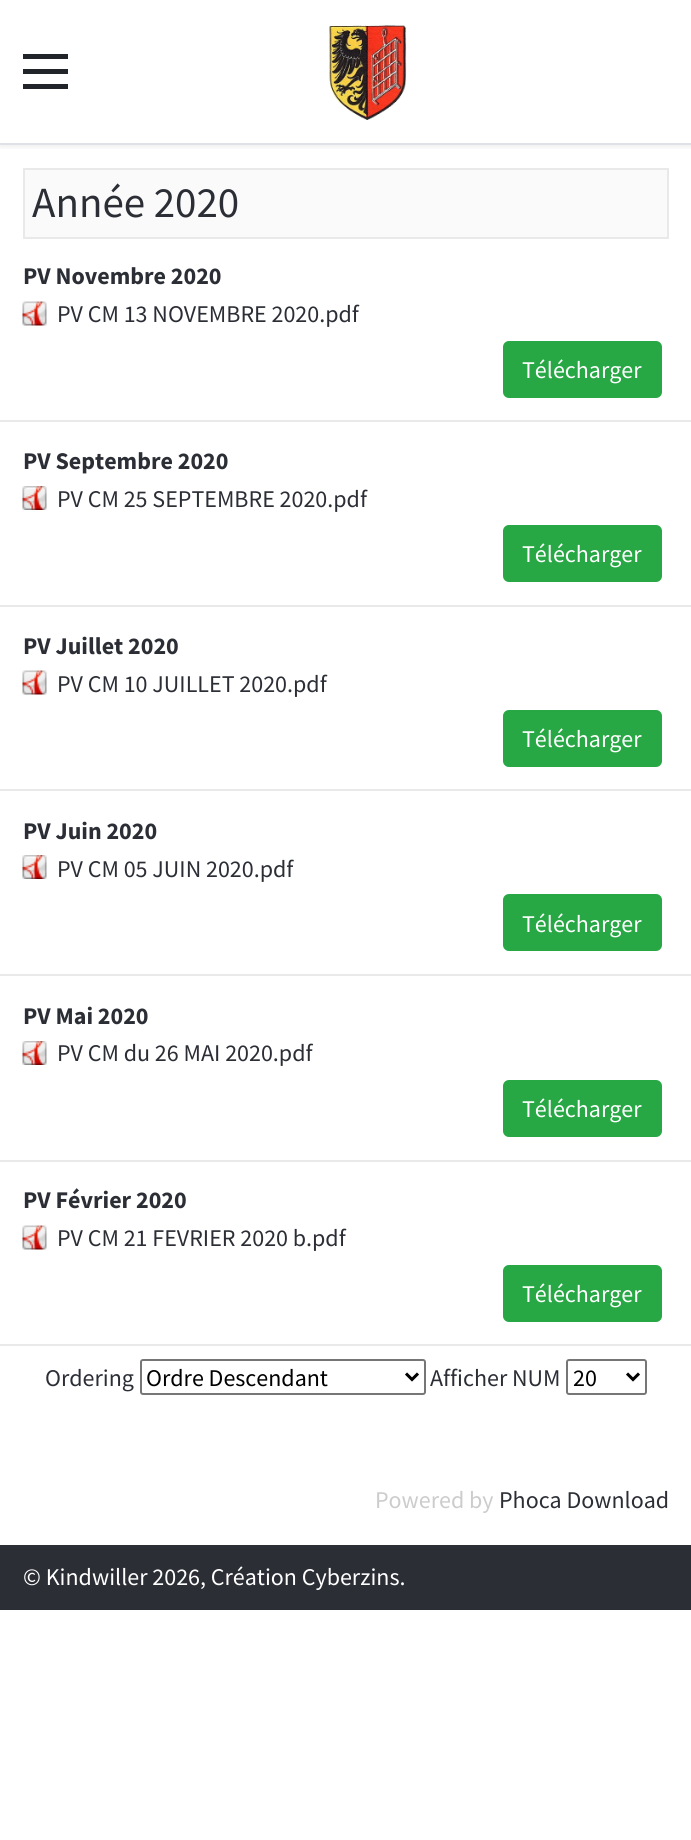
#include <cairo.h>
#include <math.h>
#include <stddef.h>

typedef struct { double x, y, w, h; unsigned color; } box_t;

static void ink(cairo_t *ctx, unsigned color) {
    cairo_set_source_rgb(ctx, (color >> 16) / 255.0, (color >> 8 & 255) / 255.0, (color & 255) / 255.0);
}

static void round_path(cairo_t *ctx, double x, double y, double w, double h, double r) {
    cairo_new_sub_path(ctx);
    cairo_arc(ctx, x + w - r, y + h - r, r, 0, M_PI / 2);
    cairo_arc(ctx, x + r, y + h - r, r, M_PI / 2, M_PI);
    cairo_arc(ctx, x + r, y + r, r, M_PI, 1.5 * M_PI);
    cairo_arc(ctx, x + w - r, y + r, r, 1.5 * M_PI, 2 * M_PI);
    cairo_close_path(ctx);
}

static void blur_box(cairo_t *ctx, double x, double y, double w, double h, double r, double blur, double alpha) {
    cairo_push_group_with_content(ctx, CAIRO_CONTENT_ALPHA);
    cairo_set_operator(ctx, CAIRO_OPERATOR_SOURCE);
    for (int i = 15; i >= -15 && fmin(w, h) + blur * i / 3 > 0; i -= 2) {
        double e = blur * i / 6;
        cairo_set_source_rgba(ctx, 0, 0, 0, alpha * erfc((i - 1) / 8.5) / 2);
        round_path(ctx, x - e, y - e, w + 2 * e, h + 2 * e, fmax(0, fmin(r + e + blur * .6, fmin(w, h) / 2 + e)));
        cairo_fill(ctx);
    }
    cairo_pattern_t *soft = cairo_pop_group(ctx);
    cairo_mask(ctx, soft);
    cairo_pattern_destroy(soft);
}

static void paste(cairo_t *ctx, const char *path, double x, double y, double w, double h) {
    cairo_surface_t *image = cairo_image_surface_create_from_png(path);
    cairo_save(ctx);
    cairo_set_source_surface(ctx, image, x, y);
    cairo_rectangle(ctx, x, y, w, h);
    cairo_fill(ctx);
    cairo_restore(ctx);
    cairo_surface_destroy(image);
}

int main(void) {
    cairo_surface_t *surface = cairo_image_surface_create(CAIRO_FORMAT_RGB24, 691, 1840);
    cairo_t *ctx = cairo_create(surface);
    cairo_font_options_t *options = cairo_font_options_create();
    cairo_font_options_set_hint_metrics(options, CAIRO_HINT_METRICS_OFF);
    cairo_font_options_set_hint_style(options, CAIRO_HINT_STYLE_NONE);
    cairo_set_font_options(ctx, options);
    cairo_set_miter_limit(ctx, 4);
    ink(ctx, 0xFFFFFF);
    cairo_paint(ctx);
    cairo_save(ctx);
    cairo_rectangle(ctx, 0, 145, 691, 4);
    cairo_clip(ctx);
    ink(ctx, 0x000000);
    blur_box(ctx, 0, 3, 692, 144, 0, 3, 0.07);
    cairo_restore(ctx);
    {
        static const box_t items[] = {
            {0, 143, 691, 2, 0xDEE2E6},
            {23, 69, 45, 5, 0x212529},
            {23, 54, 45, 5, 0x212529},
            {23, 84, 45, 5, 0x212529},
        };
        for (size_t i = 0; i < sizeof items / sizeof *items; i++) {
            ink(ctx, items[i].color);
            cairo_rectangle(ctx, items[i].x, items[i].y, items[i].w, items[i].h);
            cairo_fill(ctx);
        }
    }
    paste(ctx, "media/1.png", 328, 25, 79, 95);
    ink(ctx, 0xFAFAFA);
    cairo_rectangle(ctx, 24, 169, 644, 69);
    cairo_fill_preserve(ctx);
    ink(ctx, 0xE9E9E9);
    cairo_stroke(ctx);
    cairo_select_font_face(ctx, "Source Sans Pro", CAIRO_FONT_SLANT_NORMAL, CAIRO_FONT_WEIGHT_NORMAL);
    cairo_set_font_size(ctx, 43);
    ink(ctx, 0x2C2E36);
    cairo_move_to(ctx, 32, 217);
    cairo_show_text(ctx, "Année 2020");
    cairo_select_font_face(ctx, "Source Sans Pro", CAIRO_FONT_SLANT_NORMAL, CAIRO_FONT_WEIGHT_BOLD);
    cairo_set_font_size(ctx, 24);
    cairo_move_to(ctx, 23, 284);
    cairo_show_text(ctx, "PV Novembre 2020");
    paste(ctx, "media/2.png", 22, 301, 25, 25);
    cairo_select_font_face(ctx, "Source Sans Pro", CAIRO_FONT_SLANT_NORMAL, CAIRO_FONT_WEIGHT_NORMAL);
    cairo_move_to(ctx, 57, 322);
    cairo_show_text(ctx, "PV CM 13 NOVEMBRE 2020.pdf");
    ink(ctx, 0x28A745);
    round_path(ctx, 504, 342, 157, 55, 5);
    cairo_fill_preserve(ctx);
    cairo_stroke(ctx);
    ink(ctx, 0xFFFFFF);
    cairo_move_to(ctx, 522, 378);
    cairo_show_text(ctx, "Télécharger");
    ink(ctx, 0xE9E9E9);
    cairo_rectangle(ctx, 0, 420, 691, 2);
    cairo_fill(ctx);
    cairo_select_font_face(ctx, "Source Sans Pro", CAIRO_FONT_SLANT_NORMAL, CAIRO_FONT_WEIGHT_BOLD);
    ink(ctx, 0x2C2E36);
    cairo_move_to(ctx, 23, 469);
    cairo_show_text(ctx, "PV Septembre 2020");
    paste(ctx, "media/3.png", 22, 486, 25, 24);
    cairo_select_font_face(ctx, "Source Sans Pro", CAIRO_FONT_SLANT_NORMAL, CAIRO_FONT_WEIGHT_NORMAL);
    cairo_move_to(ctx, 57, 507);
    cairo_show_text(ctx, "PV CM 25 SEPTEMBRE 2020.pdf");
    ink(ctx, 0x28A745);
    round_path(ctx, 504, 526, 157, 55, 5);
    cairo_fill_preserve(ctx);
    cairo_stroke(ctx);
    ink(ctx, 0xFFFFFF);
    cairo_move_to(ctx, 522, 562);
    cairo_show_text(ctx, "Télécharger");
    ink(ctx, 0xE9E9E9);
    cairo_rectangle(ctx, 0, 605, 691, 2);
    cairo_fill(ctx);
    cairo_select_font_face(ctx, "Source Sans Pro", CAIRO_FONT_SLANT_NORMAL, CAIRO_FONT_WEIGHT_BOLD);
    ink(ctx, 0x2C2E36);
    cairo_move_to(ctx, 23, 654);
    cairo_show_text(ctx, "PV Juillet 2020");
    paste(ctx, "media/2.png", 22, 670, 25, 25);
    cairo_select_font_face(ctx, "Source Sans Pro", CAIRO_FONT_SLANT_NORMAL, CAIRO_FONT_WEIGHT_NORMAL);
    cairo_move_to(ctx, 57, 692);
    cairo_show_text(ctx, "PV CM 10 JUILLET 2020.pdf");
    ink(ctx, 0x28A745);
    round_path(ctx, 504, 711, 157, 55, 5);
    cairo_fill_preserve(ctx);
    cairo_stroke(ctx);
    ink(ctx, 0xFFFFFF);
    cairo_move_to(ctx, 522, 747);
    cairo_show_text(ctx, "Télécharger");
    ink(ctx, 0xE9E9E9);
    cairo_rectangle(ctx, 0, 789, 691, 2);
    cairo_fill(ctx);
    cairo_select_font_face(ctx, "Source Sans Pro", CAIRO_FONT_SLANT_NORMAL, CAIRO_FONT_WEIGHT_BOLD);
    ink(ctx, 0x2C2E36);
    cairo_move_to(ctx, 23, 839);
    cairo_show_text(ctx, "PV Juin 2020");
    paste(ctx, "media/3.png", 22, 855, 25, 24);
    cairo_select_font_face(ctx, "Source Sans Pro", CAIRO_FONT_SLANT_NORMAL, CAIRO_FONT_WEIGHT_NORMAL);
    cairo_move_to(ctx, 57, 877);
    cairo_show_text(ctx, "PV CM 05 JUIN 2020.pdf");
    ink(ctx, 0x28A745);
    round_path(ctx, 504, 895, 157, 55, 5);
    cairo_fill_preserve(ctx);
    cairo_stroke(ctx);
    ink(ctx, 0xFFFFFF);
    cairo_move_to(ctx, 522, 932);
    cairo_show_text(ctx, "Télécharger");
    ink(ctx, 0xE9E9E9);
    cairo_rectangle(ctx, 0, 974, 691, 2);
    cairo_fill(ctx);
    cairo_select_font_face(ctx, "Source Sans Pro", CAIRO_FONT_SLANT_NORMAL, CAIRO_FONT_WEIGHT_BOLD);
    ink(ctx, 0x2C2E36);
    cairo_move_to(ctx, 23, 1024);
    cairo_show_text(ctx, "PV Mai 2020");
    paste(ctx, "media/3.png", 22, 1041, 25, 24);
    cairo_select_font_face(ctx, "Source Sans Pro", CAIRO_FONT_SLANT_NORMAL, CAIRO_FONT_WEIGHT_NORMAL);
    cairo_move_to(ctx, 57, 1061);
    cairo_show_text(ctx, "PV CM du 26 MAI 2020.pdf");
    ink(ctx, 0x28A745);
    round_path(ctx, 504, 1081, 157, 55, 5);
    cairo_fill_preserve(ctx);
    cairo_stroke(ctx);
    ink(ctx, 0xFFFFFF);
    cairo_move_to(ctx, 522, 1117);
    cairo_show_text(ctx, "Télécharger");
    ink(ctx, 0xE9E9E9);
    cairo_rectangle(ctx, 0, 1160, 691, 2);
    cairo_fill(ctx);
    cairo_select_font_face(ctx, "Source Sans Pro", CAIRO_FONT_SLANT_NORMAL, CAIRO_FONT_WEIGHT_BOLD);
    ink(ctx, 0x2C2E36);
    cairo_move_to(ctx, 23, 1208);
    cairo_show_text(ctx, "PV Février 2020");
    paste(ctx, "media/2.png", 22, 1225, 25, 25);
    cairo_select_font_face(ctx, "Source Sans Pro", CAIRO_FONT_SLANT_NORMAL, CAIRO_FONT_WEIGHT_NORMAL);
    cairo_move_to(ctx, 57, 1246);
    cairo_show_text(ctx, "PV CM 21 FEVRIER 2020 b.pdf");
    ink(ctx, 0x28A745);
    round_path(ctx, 504, 1266, 157, 55, 5);
    cairo_fill_preserve(ctx);
    cairo_stroke(ctx);
    ink(ctx, 0xFFFFFF);
    cairo_move_to(ctx, 522, 1302);
    cairo_show_text(ctx, "Télécharger");
    ink(ctx, 0xE9E9E9);
    cairo_rectangle(ctx, 0, 1344, 691, 2);
    cairo_fill(ctx);
    ink(ctx, 0x2C2E36);
    cairo_move_to(ctx, 45, 1386);
    cairo_show_text(ctx, "Ordering");
    round_path(ctx, 141, 1360, 284, 34, 2);
    ink(ctx, 0x767676);
    cairo_stroke(ctx);
    cairo_new_path(ctx);
    cairo_move_to(ctx, 406, 1373.5);
    cairo_line_to(ctx, 412, 1379.5);
    cairo_line_to(ctx, 418, 1373.5);
    ink(ctx, 0x000000);
    cairo_set_line_width(ctx, 3);
    cairo_stroke(ctx);
    cairo_move_to(ctx, 146, 1386);
    cairo_show_text(ctx, "Ordre Descendant");
    ink(ctx, 0x2C2E36);
    cairo_move_to(ctx, 430, 1386);
    cairo_show_text(ctx, "Afficher NUM");
    round_path(ctx, 567, 1360, 79, 34, 2);
    ink(ctx, 0x767676);
    cairo_set_line_width(ctx, 2);
    cairo_stroke(ctx);
    cairo_new_path(ctx);
    cairo_move_to(ctx, 627, 1373.5);
    cairo_line_to(ctx, 633, 1379.5);
    cairo_line_to(ctx, 639, 1373.5);
    ink(ctx, 0x000000);
    cairo_set_line_width(ctx, 3);
    cairo_stroke(ctx);
    cairo_move_to(ctx, 573, 1386);
    cairo_show_text(ctx, "20");
    ink(ctx, 0xCCCCCC);
    cairo_move_to(ctx, 375, 1508);
    cairo_show_text(ctx, "Powered by");
    ink(ctx, 0x2C2E36);
    cairo_move_to(ctx, 499, 1508);
    cairo_show_text(ctx, "Phoca Download");
    cairo_rectangle(ctx, 0, 1545, 691, 65);
    cairo_fill(ctx);
    ink(ctx, 0xFFFFFF);
    cairo_move_to(ctx, 23, 1585);
    cairo_show_text(ctx, "© Kindwiller 2026, Création Cyberzins.");
    cairo_surface_write_to_png(surface, "image.png");
    cairo_font_options_destroy(options);
    cairo_destroy(ctx);
    cairo_surface_destroy(surface);
    return 0;
}
